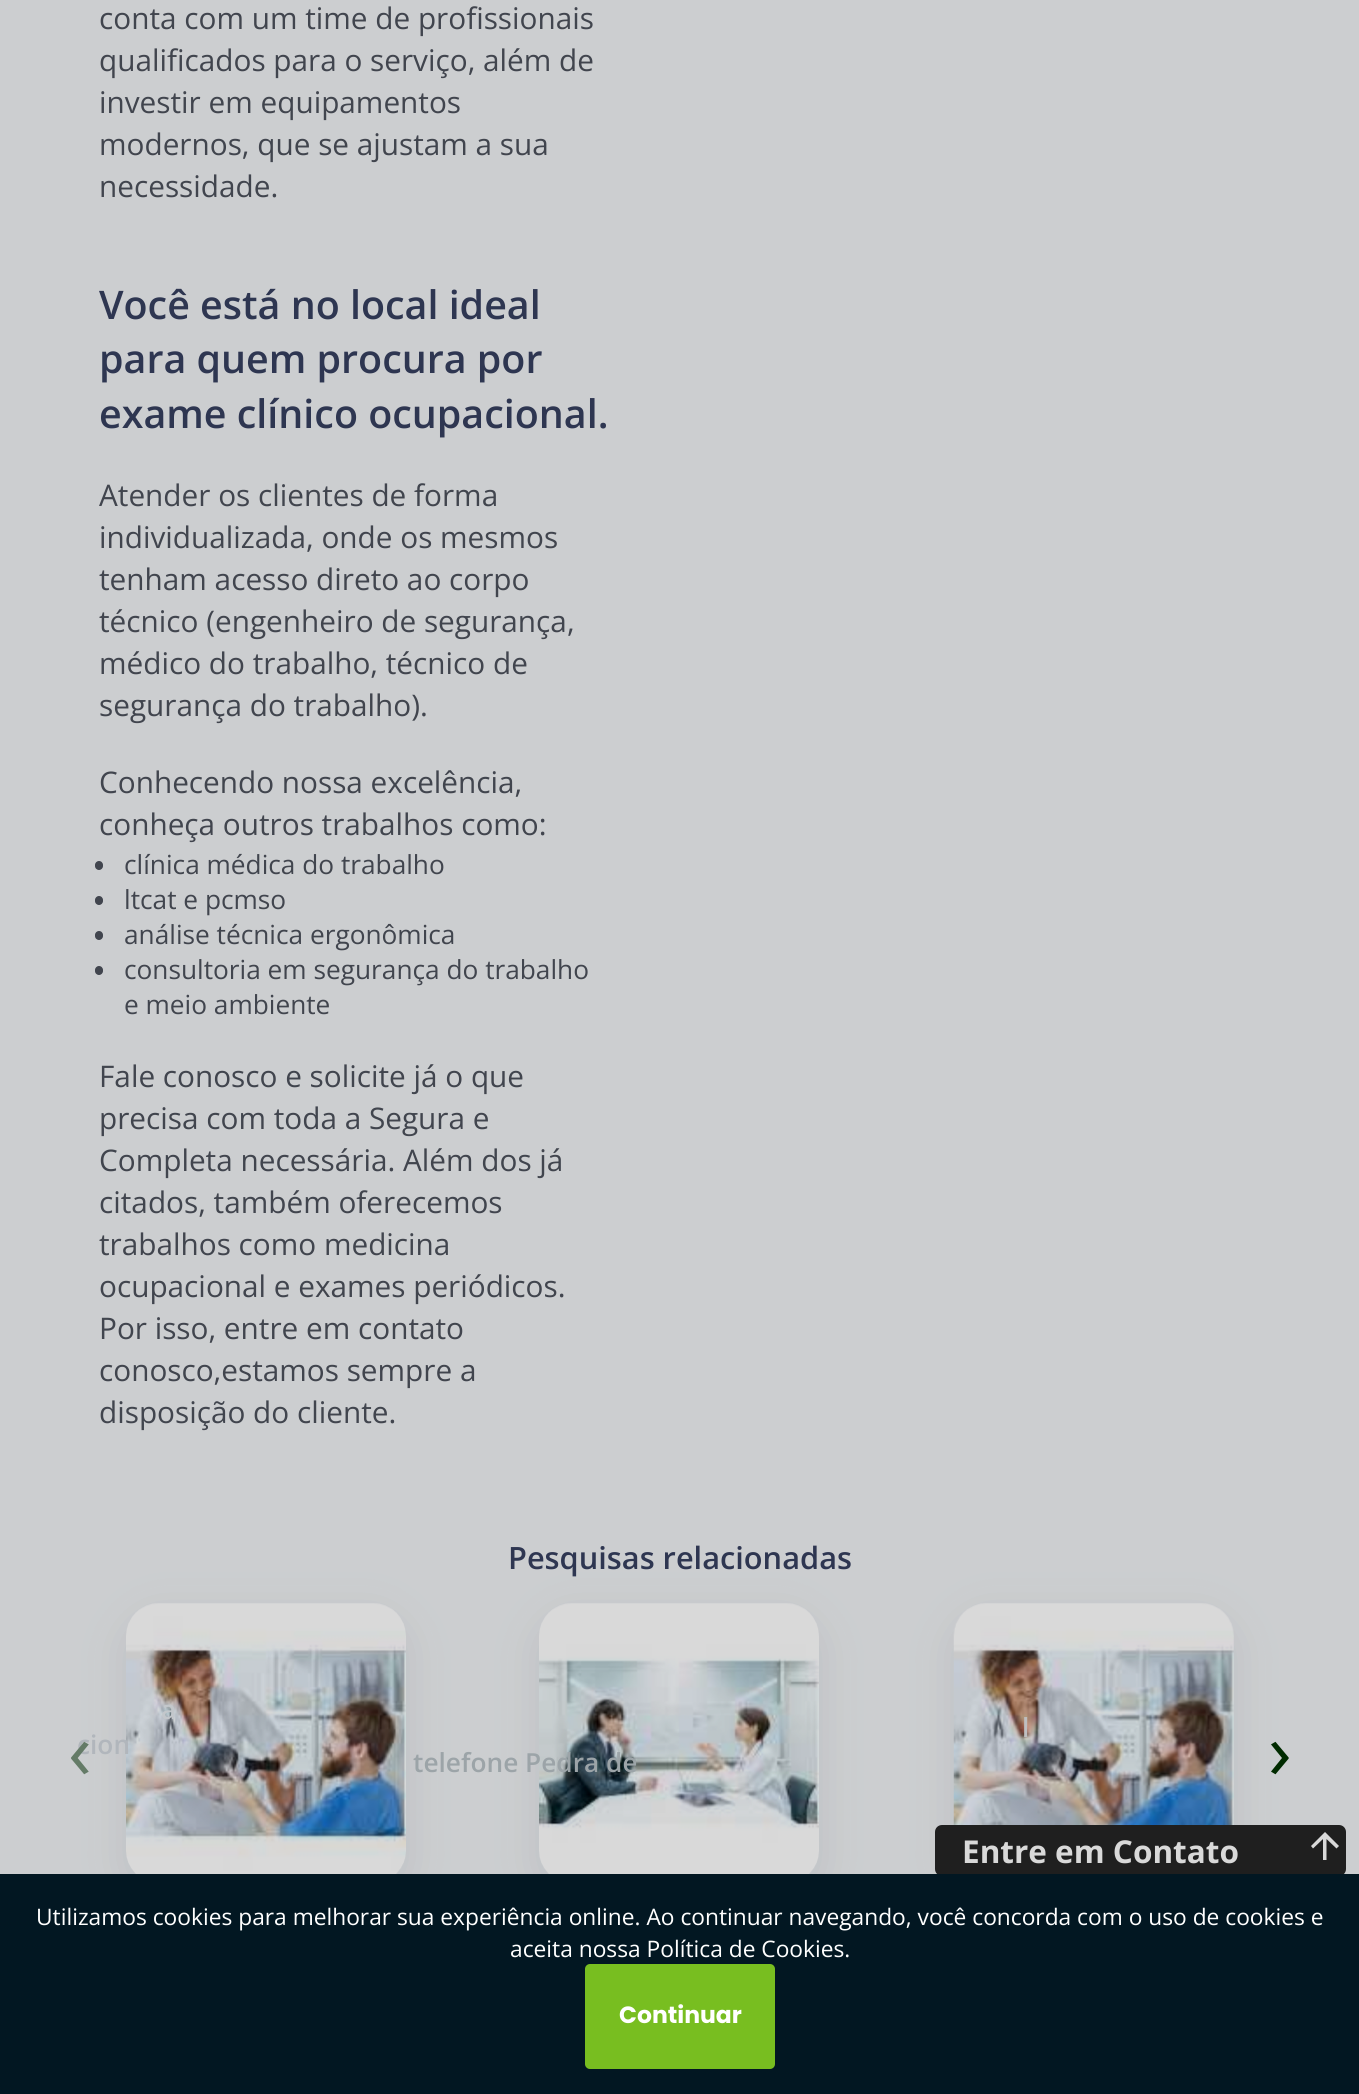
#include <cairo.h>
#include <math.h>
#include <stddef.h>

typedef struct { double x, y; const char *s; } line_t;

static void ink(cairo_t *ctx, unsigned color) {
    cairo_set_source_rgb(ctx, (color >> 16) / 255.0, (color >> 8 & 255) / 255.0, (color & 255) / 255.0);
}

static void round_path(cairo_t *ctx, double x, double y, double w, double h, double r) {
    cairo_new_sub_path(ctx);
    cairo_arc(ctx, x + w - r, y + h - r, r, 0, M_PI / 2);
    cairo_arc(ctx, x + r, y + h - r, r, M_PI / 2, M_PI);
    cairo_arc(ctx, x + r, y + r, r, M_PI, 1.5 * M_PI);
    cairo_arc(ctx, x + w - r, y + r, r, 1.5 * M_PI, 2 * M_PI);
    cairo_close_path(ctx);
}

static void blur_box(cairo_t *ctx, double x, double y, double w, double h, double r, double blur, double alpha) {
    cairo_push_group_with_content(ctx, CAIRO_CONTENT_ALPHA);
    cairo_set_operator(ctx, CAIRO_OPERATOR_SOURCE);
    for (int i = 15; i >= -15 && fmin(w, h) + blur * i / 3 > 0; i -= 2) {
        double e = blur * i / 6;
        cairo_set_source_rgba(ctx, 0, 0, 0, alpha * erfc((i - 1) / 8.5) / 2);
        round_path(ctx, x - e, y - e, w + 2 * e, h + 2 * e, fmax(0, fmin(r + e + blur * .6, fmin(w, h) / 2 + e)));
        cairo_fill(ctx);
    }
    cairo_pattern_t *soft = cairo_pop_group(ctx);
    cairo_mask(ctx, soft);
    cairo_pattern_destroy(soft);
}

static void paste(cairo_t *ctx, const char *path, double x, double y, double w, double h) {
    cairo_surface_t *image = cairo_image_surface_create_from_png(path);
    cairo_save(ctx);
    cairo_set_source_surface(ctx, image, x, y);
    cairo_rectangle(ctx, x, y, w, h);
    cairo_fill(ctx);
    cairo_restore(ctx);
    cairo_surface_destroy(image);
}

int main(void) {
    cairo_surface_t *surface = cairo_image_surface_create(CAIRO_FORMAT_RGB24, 1359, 2094);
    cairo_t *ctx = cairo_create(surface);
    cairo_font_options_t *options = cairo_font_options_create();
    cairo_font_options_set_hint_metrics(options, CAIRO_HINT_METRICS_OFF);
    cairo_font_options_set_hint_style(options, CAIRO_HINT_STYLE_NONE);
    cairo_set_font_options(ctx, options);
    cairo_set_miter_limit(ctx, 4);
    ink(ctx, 0xCCCED0);
    cairo_paint(ctx);
    cairo_select_font_face(ctx, "Open Sans", CAIRO_FONT_SLANT_NORMAL, CAIRO_FONT_WEIGHT_NORMAL);
    cairo_set_font_size(ctx, 29.75);
    ink(ctx, 0x41454E);
    {
        static const line_t items[] = {
            {99, 29, "conta com um time de profissionais"},
            {99, 71, "qualificados para o serviço, além de"},
            {99, 113, "investir em equipamentos"},
            {99, 155, "modernos, que se ajustam a sua"},
            {99, 197, "necessidade."},
        };
        for (size_t i = 0; i < sizeof items / sizeof *items; i++) {
            cairo_move_to(ctx, items[i].x, items[i].y);
            cairo_show_text(ctx, items[i].s);
        }
    }
    cairo_select_font_face(ctx, "Open Sans SemiBold", CAIRO_FONT_SLANT_NORMAL, CAIRO_FONT_WEIGHT_NORMAL);
    cairo_set_font_size(ctx, 39.4);
    ink(ctx, 0x2E3651);
    {
        static const line_t items[] = {
            {99, 319, "Você está no local ideal"},
            {99, 373, "para quem procura por"},
            {99, 428, "exame clínico ocupacional."},
        };
        for (size_t i = 0; i < sizeof items / sizeof *items; i++) {
            cairo_move_to(ctx, items[i].x, items[i].y);
            cairo_show_text(ctx, items[i].s);
        }
    }
    cairo_select_font_face(ctx, "Open Sans", CAIRO_FONT_SLANT_NORMAL, CAIRO_FONT_WEIGHT_NORMAL);
    cairo_set_font_size(ctx, 29.75);
    ink(ctx, 0x41454E);
    {
        static const line_t items[] = {
            {99, 506, "Atender os clientes de forma"},
            {99, 548, "individualizada, onde os mesmos"},
            {99, 590, "tenham acesso direto ao corpo"},
            {99, 632, "técnico (engenheiro de segurança,"},
            {99, 674, "médico do trabalho, técnico de"},
            {99, 716, "segurança do trabalho)."},
            {99, 793, "Conhecendo nossa excelência,"},
            {99, 835, "conheça outros trabalhos como:"},
        };
        for (size_t i = 0; i < sizeof items / sizeof *items; i++) {
            cairo_move_to(ctx, items[i].x, items[i].y);
            cairo_show_text(ctx, items[i].s);
        }
    }
    round_path(ctx, 95, 861, 8, 9, 4);
    cairo_fill(ctx);
    cairo_set_font_size(ctx, 26.25);
    cairo_move_to(ctx, 124, 874);
    cairo_show_text(ctx, "clínica médica do trabalho");
    round_path(ctx, 95, 896, 8, 9, 4);
    cairo_fill(ctx);
    cairo_move_to(ctx, 124, 909);
    cairo_show_text(ctx, "ltcat e pcmso");
    round_path(ctx, 95, 931, 8, 9, 4);
    cairo_fill(ctx);
    cairo_move_to(ctx, 124, 944);
    cairo_show_text(ctx, "análise técnica ergonômica");
    round_path(ctx, 95, 966, 8, 9, 4);
    cairo_fill(ctx);
    cairo_move_to(ctx, 124, 979);
    cairo_show_text(ctx, "consultoria em segurança do trabalho");
    cairo_move_to(ctx, 124, 1014);
    cairo_show_text(ctx, "e meio ambiente");
    cairo_set_font_size(ctx, 29.75);
    {
        static const line_t items[] = {
            {99, 1087, "Fale conosco e solicite já o que"},
            {99, 1129, "precisa com toda a Segura e"},
            {99, 1171, "Completa necessária. Além dos já"},
            {99, 1213, "citados, também oferecemos"},
            {99, 1255, "trabalhos como medicina"},
            {99, 1297, "ocupacional e exames periódicos."},
            {99, 1339, "Por isso, entre em contato"},
            {99, 1381, "conosco,estamos sempre a"},
            {99, 1423, "disposição do cliente."},
        };
        for (size_t i = 0; i < sizeof items / sizeof *items; i++) {
            cairo_move_to(ctx, items[i].x, items[i].y);
            cairo_show_text(ctx, items[i].s);
        }
    }
    cairo_select_font_face(ctx, "Open Sans SemiBold", CAIRO_FONT_SLANT_NORMAL, CAIRO_FONT_WEIGHT_NORMAL);
    cairo_set_font_size(ctx, 30.75);
    ink(ctx, 0x2E3651);
    cairo_move_to(ctx, 508, 1569);
    cairo_show_text(ctx, "Pesquisas relacionadas");
    ink(ctx, 0x7F858C);
    blur_box(ctx, 126, 1617, 280, 280, 33, 21, 0.2);
    paste(ctx, "media/1.png", 126, 1603, 280, 271);
    cairo_set_font_size(ctx, 26.25);
    ink(ctx, 0xC3C7CB);
    cairo_move_to(ctx, 161, 1719);
    cairo_show_text(ctx, "a");
    ink(ctx, 0xB1B6BC);
    cairo_move_to(ctx, 77, 1754);
    cairo_show_text(ctx, "cion");
    ink(ctx, 0x7F858C);
    blur_box(ctx, 954, 1617, 280, 280, 33, 21, 0.2);
    paste(ctx, "media/2.png", 953, 1603, 281, 222);
    ink(ctx, 0xBFBFC1);
    cairo_move_to(ctx, 1022, 1737);
    cairo_show_text(ctx, "l");
    ink(ctx, 0x7F858C);
    blur_box(ctx, 539, 1617, 280, 280, 33, 21, 0.2);
    paste(ctx, "media/3.png", 539, 1603, 280, 271);
    ink(ctx, 0x9CA4A8);
    cairo_move_to(ctx, 413, 1772);
    cairo_show_text(ctx, "telefone Pedra de");
    cairo_select_font_face(ctx, "Open Sans", CAIRO_FONT_SLANT_NORMAL, CAIRO_FONT_WEIGHT_NORMAL);
    cairo_set_font_size(ctx, 79);
    ink(ctx, 0x647B67);
    cairo_move_to(ctx, 68, 1779);
    cairo_show_text(ctx, "‹");
    ink(ctx, 0x002B00);
    cairo_move_to(ctx, 1268, 1779);
    cairo_show_text(ctx, "›");
    ink(ctx, 0x1F1F1F);
    round_path(ctx, 935, 1825, 411, 51, 7);
    cairo_fill(ctx);
    cairo_select_font_face(ctx, "Open Sans", CAIRO_FONT_SLANT_NORMAL, CAIRO_FONT_WEIGHT_BOLD);
    cairo_set_font_size(ctx, 31.5);
    ink(ctx, 0xD9D9D9);
    cairo_move_to(ctx, 962, 1863);
    cairo_show_text(ctx, "Entre em Contato");
    cairo_new_path(ctx);
    cairo_move_to(ctx, 1311, 1846);
    cairo_line_to(ctx, 1313, 1848.5);
    cairo_line_to(ctx, 1323, 1839);
    cairo_line_to(ctx, 1323, 1860);
    cairo_line_to(ctx, 1326.5, 1860);
    cairo_line_to(ctx, 1326.5, 1839);
    cairo_line_to(ctx, 1336.5, 1848.5);
    cairo_line_to(ctx, 1339, 1846);
    cairo_line_to(ctx, 1325, 1832);
    cairo_close_path(ctx);
    cairo_fill(ctx);
    ink(ctx, 0x021722);
    cairo_rectangle(ctx, 0, 1874, 1359, 220);
    cairo_fill(ctx);
    cairo_select_font_face(ctx, "Open Sans", CAIRO_FONT_SLANT_NORMAL, CAIRO_FONT_WEIGHT_NORMAL);
    cairo_set_font_size(ctx, 22.75);
    ink(ctx, 0xFFFFFF);
    cairo_move_to(ctx, 36, 1925);
    cairo_show_text(ctx, "Utilizamos cookies para melhorar sua experiência online. Ao continuar navegando, você concorda com o uso de cookies e");
    cairo_move_to(ctx, 510, 1957);
    cairo_show_text(ctx, "aceita nossa Política de Cookies.");
    ink(ctx, 0x78BE20);
    round_path(ctx, 585, 1964, 190, 105, 5);
    cairo_fill(ctx);
    cairo_select_font_face(ctx, "Poppins", CAIRO_FONT_SLANT_NORMAL, CAIRO_FONT_WEIGHT_BOLD);
    cairo_set_font_size(ctx, 23.5);
    ink(ctx, 0xFFFFFF);
    cairo_move_to(ctx, 619, 2023);
    cairo_show_text(ctx, "Continuar");
    cairo_surface_write_to_png(surface, "image.png");
    cairo_font_options_destroy(options);
    cairo_destroy(ctx);
    cairo_surface_destroy(surface);
    return 0;
}
